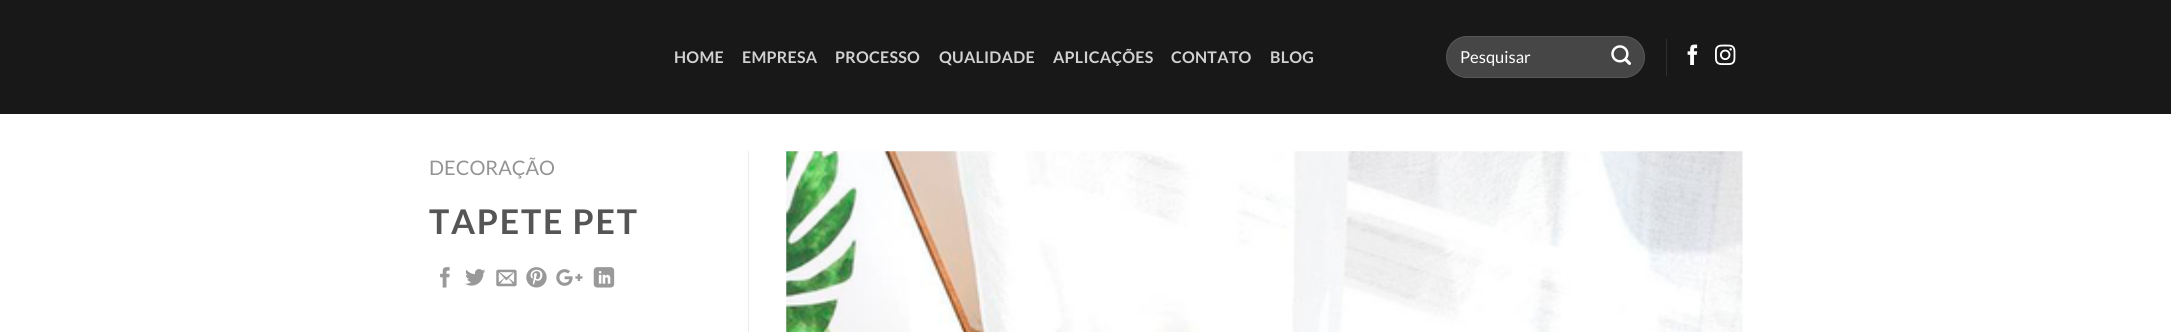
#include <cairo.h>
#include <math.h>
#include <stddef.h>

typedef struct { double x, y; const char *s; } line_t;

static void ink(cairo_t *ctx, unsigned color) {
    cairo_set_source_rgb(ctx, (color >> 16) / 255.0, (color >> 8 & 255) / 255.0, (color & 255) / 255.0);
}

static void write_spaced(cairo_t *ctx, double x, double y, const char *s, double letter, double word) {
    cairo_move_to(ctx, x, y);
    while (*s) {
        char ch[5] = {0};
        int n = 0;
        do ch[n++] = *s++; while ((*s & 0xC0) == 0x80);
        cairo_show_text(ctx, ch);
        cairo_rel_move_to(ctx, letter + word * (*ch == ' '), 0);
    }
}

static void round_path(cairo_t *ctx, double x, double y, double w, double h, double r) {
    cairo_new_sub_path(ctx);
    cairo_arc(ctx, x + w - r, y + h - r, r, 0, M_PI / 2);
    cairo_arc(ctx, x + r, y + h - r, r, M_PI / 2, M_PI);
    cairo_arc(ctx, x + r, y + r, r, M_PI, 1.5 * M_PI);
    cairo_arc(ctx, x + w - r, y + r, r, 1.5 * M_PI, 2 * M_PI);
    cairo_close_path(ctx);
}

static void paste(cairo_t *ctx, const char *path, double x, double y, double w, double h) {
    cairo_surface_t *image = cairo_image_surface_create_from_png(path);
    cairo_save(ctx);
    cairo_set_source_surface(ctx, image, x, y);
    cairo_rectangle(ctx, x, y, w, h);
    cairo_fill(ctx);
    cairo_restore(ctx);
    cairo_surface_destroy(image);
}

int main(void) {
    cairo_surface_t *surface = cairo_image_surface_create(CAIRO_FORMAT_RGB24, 2171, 332);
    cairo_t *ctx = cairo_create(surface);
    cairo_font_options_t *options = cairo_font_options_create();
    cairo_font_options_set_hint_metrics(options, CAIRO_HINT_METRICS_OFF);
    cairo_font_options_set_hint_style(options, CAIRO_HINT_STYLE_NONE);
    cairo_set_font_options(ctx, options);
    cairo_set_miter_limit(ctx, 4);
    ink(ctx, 0xFFFFFF);
    cairo_paint(ctx);
    ink(ctx, 0x181818);
    cairo_rectangle(ctx, 0, 0, 2171, 114);
    cairo_fill(ctx);
    cairo_select_font_face(ctx, "Lato", CAIRO_FONT_SLANT_NORMAL, CAIRO_FONT_WEIGHT_BOLD);
    cairo_set_font_size(ctx, 16);
    ink(ctx, 0xD1D1D1);
    {
        static const line_t items[] = {
            {674, 63, "HOME"},
            {742, 63, "EMPRESA"},
            {835, 63, "PROCESSO"},
            {939, 63, "QUALIDADE"},
            {1053, 63, "APLICAÇÕES"},
            {1171, 63, "CONTATO"},
            {1270, 63, "BLOG"},
        };
        for (size_t i = 0; i < sizeof items / sizeof *items; i++) {
            write_spaced(ctx, items[i].x, items[i].y, items[i].s, 0.25, 0);
        }
    }
    ink(ctx, 0x464646);
    round_path(ctx, 1446, 36, 199, 42, 21);
    cairo_fill(ctx);
    round_path(ctx, 1446.5, 36.5, 198, 41, 20.5);
    cairo_set_source_rgba(ctx, 1, 1, 1, 0.09);
    cairo_set_line_width(ctx, 1);
    cairo_stroke(ctx);
    cairo_select_font_face(ctx, "Lato", CAIRO_FONT_SLANT_NORMAL, CAIRO_FONT_WEIGHT_NORMAL);
    cairo_set_font_size(ctx, 16.5);
    ink(ctx, 0xFFFFFF);
    cairo_move_to(ctx, 1460, 63);
    cairo_show_text(ctx, "Pesquisar");
    paste(ctx, "media/1.png", 1611, 45, 20, 20);
    ink(ctx, 0x2F2F2F);
    cairo_rectangle(ctx, 1666, 39, 1, 37);
    cairo_fill(ctx);
    paste(ctx, "media/2.png", 1687, 44, 11, 21);
    paste(ctx, "media/3.png", 1715, 44, 21, 21);
    ink(ctx, 0xECECEC);
    cairo_rectangle(ctx, 748, 151, 1, 181);
    cairo_fill(ctx);
    cairo_set_font_size(ctx, 20);
    ink(ctx, 0x949494);
    cairo_move_to(ctx, 429, 175);
    cairo_show_text(ctx, "DECORAÇÃO");
    cairo_select_font_face(ctx, "Lato", CAIRO_FONT_SLANT_NORMAL, CAIRO_FONT_WEIGHT_BOLD);
    cairo_set_font_size(ctx, 34);
    ink(ctx, 0x555555);
    write_spaced(ctx, 429, 234, "TAPETE PET", 1.75, 0);
    paste(ctx, "media/4.png", 440, 267, 10, 21);
    paste(ctx, "media/5.png", 465, 269, 21, 17);
    paste(ctx, "media/6.png", 496, 269, 21, 18);
    paste(ctx, "media/7.png", 526, 267, 21, 21);
    paste(ctx, "media/8.png", 556, 269, 27, 17);
    paste(ctx, "media/9.png", 593, 267, 22, 21);
    paste(ctx, "media/10.png", 786, 151, 957, 181);
    cairo_surface_write_to_png(surface, "image.png");
    cairo_font_options_destroy(options);
    cairo_destroy(ctx);
    cairo_surface_destroy(surface);
    return 0;
}
